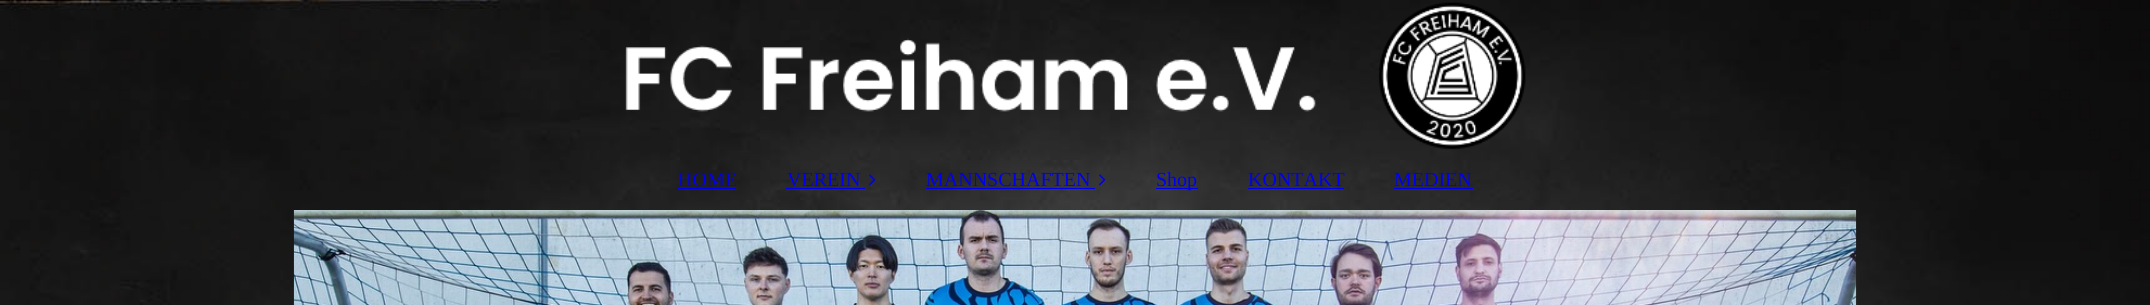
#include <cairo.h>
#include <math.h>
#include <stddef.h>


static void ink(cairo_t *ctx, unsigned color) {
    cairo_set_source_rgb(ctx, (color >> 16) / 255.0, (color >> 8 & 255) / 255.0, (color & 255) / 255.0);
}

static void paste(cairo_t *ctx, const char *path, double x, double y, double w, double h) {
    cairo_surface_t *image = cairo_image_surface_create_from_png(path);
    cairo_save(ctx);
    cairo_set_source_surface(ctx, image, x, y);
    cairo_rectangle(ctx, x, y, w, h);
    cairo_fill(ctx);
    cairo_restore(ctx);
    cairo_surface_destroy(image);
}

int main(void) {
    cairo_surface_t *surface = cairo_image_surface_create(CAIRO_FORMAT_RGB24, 2150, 305);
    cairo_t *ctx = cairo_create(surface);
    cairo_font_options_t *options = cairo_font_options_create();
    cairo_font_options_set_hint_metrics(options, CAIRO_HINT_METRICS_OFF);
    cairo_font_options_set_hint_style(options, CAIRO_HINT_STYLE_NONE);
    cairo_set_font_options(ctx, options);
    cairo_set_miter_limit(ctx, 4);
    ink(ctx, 0xFFFFFF);
    cairo_paint(ctx);
    paste(ctx, "media/1.png", 0, 0, 2150, 305);
    paste(ctx, "media/2.png", 625, 2, 901, 147);
    cairo_select_font_face(ctx, "Liberation Serif", CAIRO_FONT_SLANT_NORMAL, CAIRO_FONT_WEIGHT_NORMAL);
    cairo_set_font_size(ctx, 20);
    ink(ctx, 0x0000EE);
    cairo_move_to(ctx, 678, 186);
    cairo_show_text(ctx, "HOME");
    cairo_rectangle(ctx, 678, 188, 58, 1);
    cairo_fill(ctx);
    cairo_move_to(ctx, 787, 186);
    cairo_show_text(ctx, "VEREIN");
    cairo_rectangle(ctx, 786, 188, 79, 1);
    cairo_fill(ctx);
    paste(ctx, "media/3.png", 868, 174, 8, 12);
    cairo_move_to(ctx, 926, 186);
    cairo_show_text(ctx, "MANNSCHAFTEN");
    cairo_rectangle(ctx, 926, 188, 169, 1);
    cairo_fill(ctx);
    paste(ctx, "media/4.png", 1098, 174, 8, 12);
    cairo_rectangle(ctx, 1156, 188, 42, 1);
    cairo_fill(ctx);
    cairo_move_to(ctx, 1156, 186);
    cairo_show_text(ctx, "Shop");
    cairo_move_to(ctx, 1248, 186);
    cairo_show_text(ctx, "KONTAKT");
    cairo_rectangle(ctx, 1248, 188, 96, 1);
    cairo_fill(ctx);
    cairo_move_to(ctx, 1394, 186);
    cairo_show_text(ctx, "MEDIEN");
    cairo_rectangle(ctx, 1394, 188, 79, 1);
    cairo_fill(ctx);
    paste(ctx, "media/5.png", 293, 210, 1564, 95);
    cairo_surface_write_to_png(surface, "image.png");
    cairo_font_options_destroy(options);
    cairo_destroy(ctx);
    cairo_surface_destroy(surface);
    return 0;
}
